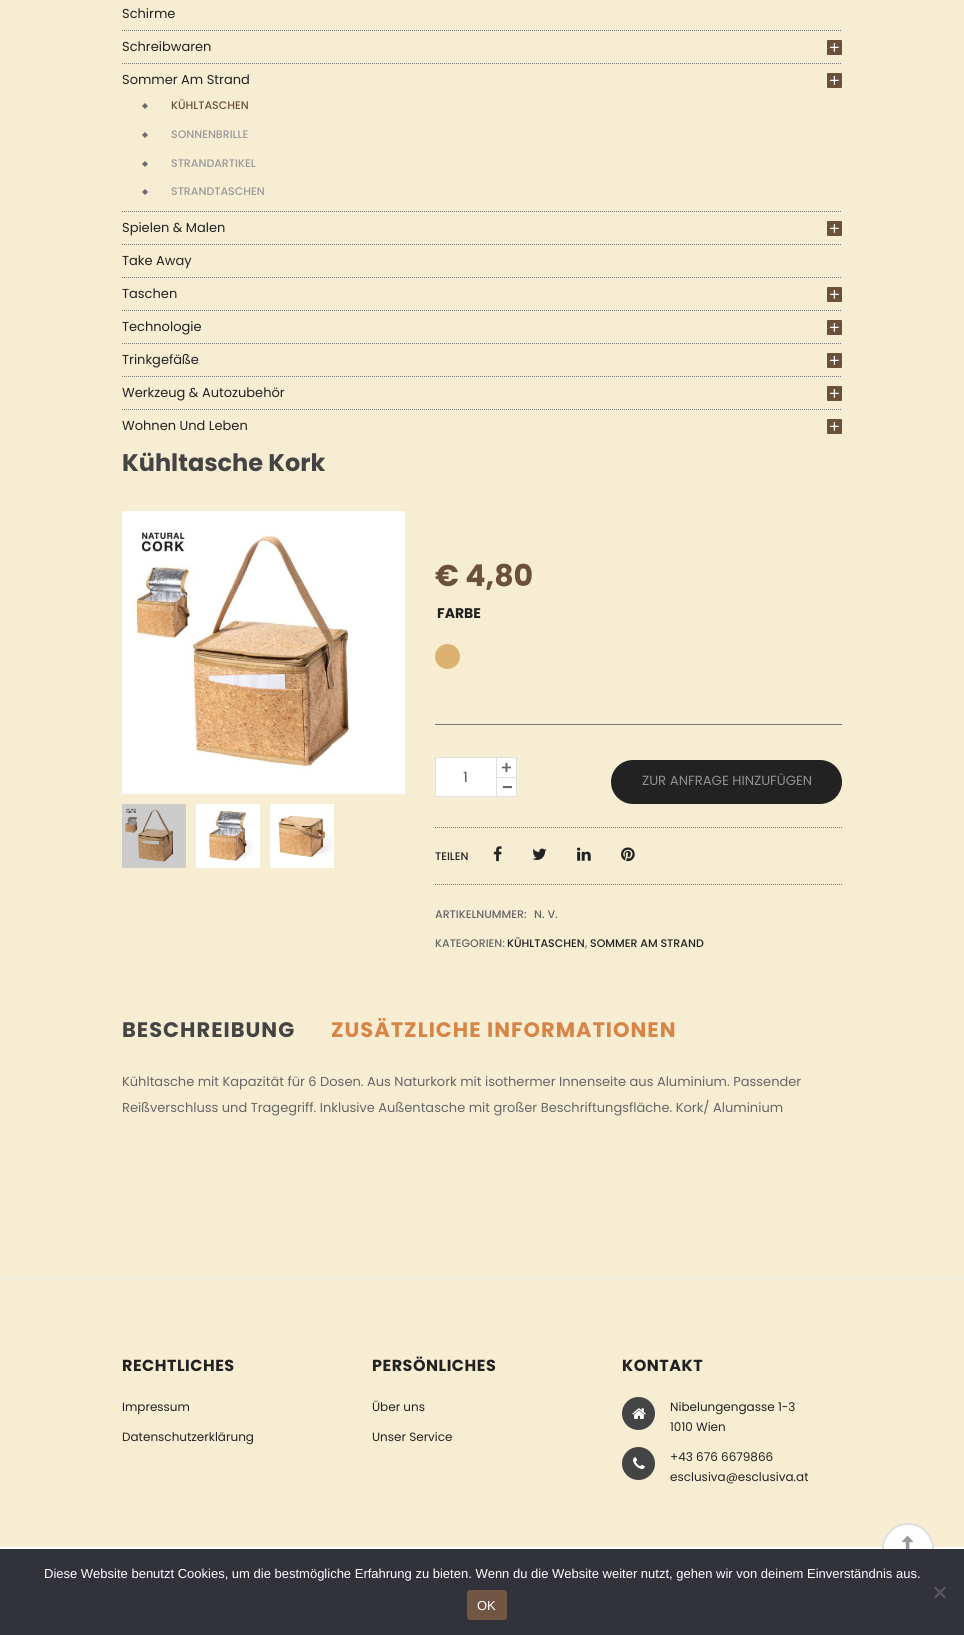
#include <cairo.h>
#include <math.h>
#include <stddef.h>

typedef struct { double x, y; const char *s; } line_t;
typedef struct { double x, y, w, h; unsigned color; } box_t;

static void ink(cairo_t *ctx, unsigned color) {
    cairo_set_source_rgb(ctx, (color >> 16) / 255.0, (color >> 8 & 255) / 255.0, (color & 255) / 255.0);
}

static void write_spaced(cairo_t *ctx, double x, double y, const char *s, double letter, double word) {
    cairo_move_to(ctx, x, y);
    while (*s) {
        char ch[5] = {0};
        int n = 0;
        do ch[n++] = *s++; while ((*s & 0xC0) == 0x80);
        cairo_show_text(ctx, ch);
        cairo_rel_move_to(ctx, letter + word * (*ch == ' '), 0);
    }
}

static void round_path(cairo_t *ctx, double x, double y, double w, double h, double r) {
    cairo_new_sub_path(ctx);
    cairo_arc(ctx, x + w - r, y + h - r, r, 0, M_PI / 2);
    cairo_arc(ctx, x + r, y + h - r, r, M_PI / 2, M_PI);
    cairo_arc(ctx, x + r, y + r, r, M_PI, 1.5 * M_PI);
    cairo_arc(ctx, x + w - r, y + r, r, 1.5 * M_PI, 2 * M_PI);
    cairo_close_path(ctx);
}

static void paste(cairo_t *ctx, const char *path, double x, double y, double w, double h) {
    cairo_surface_t *image = cairo_image_surface_create_from_png(path);
    cairo_save(ctx);
    cairo_set_source_surface(ctx, image, x, y);
    cairo_rectangle(ctx, x, y, w, h);
    cairo_fill(ctx);
    cairo_restore(ctx);
    cairo_surface_destroy(image);
}

int main(void) {
    cairo_surface_t *surface = cairo_image_surface_create(CAIRO_FORMAT_RGB24, 964, 1635);
    cairo_t *ctx = cairo_create(surface);
    cairo_font_options_t *options = cairo_font_options_create();
    cairo_font_options_set_hint_metrics(options, CAIRO_HINT_METRICS_OFF);
    cairo_font_options_set_hint_style(options, CAIRO_HINT_STYLE_NONE);
    cairo_set_font_options(ctx, options);
    cairo_set_miter_limit(ctx, 4);
    ink(ctx, 0xF7EDD3);
    cairo_paint(ctx);
    cairo_new_path(ctx);
    cairo_move_to(ctx, 122, 30.5);
    cairo_line_to(ctx, 842, 30.5);
    ink(ctx, 0x797979);
    cairo_set_line_width(ctx, 1);
    cairo_set_dash(ctx, (double[]){1, 1}, 2, 0);
    cairo_stroke(ctx);
    cairo_select_font_face(ctx, "Poppins", CAIRO_FONT_SLANT_NORMAL, CAIRO_FONT_WEIGHT_NORMAL);
    cairo_set_font_size(ctx, 13);
    ink(ctx, 0x222222);
    cairo_move_to(ctx, 122, 18);
    cairo_show_text(ctx, "Schirme");
    cairo_new_path(ctx);
    cairo_move_to(ctx, 122, 63.5);
    cairo_line_to(ctx, 842, 63.5);
    ink(ctx, 0x797979);
    cairo_stroke(ctx);
    ink(ctx, 0x222222);
    cairo_move_to(ctx, 122, 51);
    cairo_show_text(ctx, "Schreibwaren");
    ink(ctx, 0x6B503B);
    round_path(ctx, 827, 40, 15, 15, 1);
    cairo_fill(ctx);
    paste(ctx, "media/1.png", 830, 43, 9, 9);
    cairo_new_path(ctx);
    cairo_move_to(ctx, 122, 211.5);
    cairo_line_to(ctx, 842, 211.5);
    ink(ctx, 0x797979);
    cairo_stroke(ctx);
    ink(ctx, 0x222222);
    cairo_move_to(ctx, 122, 84);
    cairo_show_text(ctx, "Sommer Am Strand");
    ink(ctx, 0x6B503B);
    round_path(ctx, 827, 73, 15, 15, 1);
    cairo_fill(ctx);
    paste(ctx, "media/1.png", 830, 76, 9, 9);
    paste(ctx, "media/2.png", 142, 103, 6, 6);
    cairo_select_font_face(ctx, "Poppins Medium", CAIRO_FONT_SLANT_NORMAL, CAIRO_FONT_WEIGHT_NORMAL);
    cairo_set_font_size(ctx, 11);
    ink(ctx, 0x6B513B);
    cairo_move_to(ctx, 171, 109);
    cairo_show_text(ctx, "KÜHLTASCHEN");
    paste(ctx, "media/2.png", 142, 132, 6, 6);
    ink(ctx, 0x999999);
    cairo_move_to(ctx, 171, 138);
    cairo_show_text(ctx, "SONNENBRILLE");
    paste(ctx, "media/2.png", 142, 161, 6, 6);
    cairo_move_to(ctx, 171, 167);
    cairo_show_text(ctx, "STRANDARTIKEL");
    paste(ctx, "media/2.png", 142, 189, 6, 6);
    cairo_move_to(ctx, 171, 195);
    cairo_show_text(ctx, "STRANDTASCHEN");
    cairo_new_path(ctx);
    cairo_move_to(ctx, 122, 244.5);
    cairo_line_to(ctx, 842, 244.5);
    ink(ctx, 0x797979);
    cairo_stroke(ctx);
    cairo_select_font_face(ctx, "Poppins", CAIRO_FONT_SLANT_NORMAL, CAIRO_FONT_WEIGHT_NORMAL);
    cairo_set_font_size(ctx, 13);
    ink(ctx, 0x222222);
    cairo_move_to(ctx, 122, 232);
    cairo_show_text(ctx, "Spielen & Malen");
    ink(ctx, 0x6B503B);
    round_path(ctx, 827, 221, 15, 15, 1);
    cairo_fill(ctx);
    paste(ctx, "media/1.png", 830, 224, 9, 9);
    cairo_new_path(ctx);
    cairo_move_to(ctx, 122, 277.5);
    cairo_line_to(ctx, 842, 277.5);
    ink(ctx, 0x797979);
    cairo_stroke(ctx);
    ink(ctx, 0x222222);
    cairo_move_to(ctx, 122, 265);
    cairo_show_text(ctx, "Take Away");
    cairo_new_path(ctx);
    cairo_move_to(ctx, 122, 310.5);
    cairo_line_to(ctx, 842, 310.5);
    ink(ctx, 0x797979);
    cairo_stroke(ctx);
    ink(ctx, 0x222222);
    cairo_move_to(ctx, 122, 298);
    cairo_show_text(ctx, "Taschen");
    ink(ctx, 0x6B503B);
    round_path(ctx, 827, 287, 15, 15, 1);
    cairo_fill(ctx);
    paste(ctx, "media/1.png", 830, 290, 9, 9);
    cairo_new_path(ctx);
    cairo_move_to(ctx, 122, 343.5);
    cairo_line_to(ctx, 842, 343.5);
    ink(ctx, 0x797979);
    cairo_stroke(ctx);
    ink(ctx, 0x222222);
    cairo_move_to(ctx, 122, 331);
    cairo_show_text(ctx, "Technologie");
    ink(ctx, 0x6B503B);
    round_path(ctx, 827, 320, 15, 15, 1);
    cairo_fill(ctx);
    paste(ctx, "media/1.png", 830, 323, 9, 9);
    cairo_new_path(ctx);
    cairo_move_to(ctx, 122, 376.5);
    cairo_line_to(ctx, 842, 376.5);
    ink(ctx, 0x797979);
    cairo_stroke(ctx);
    ink(ctx, 0x222222);
    cairo_move_to(ctx, 122, 364);
    cairo_show_text(ctx, "Trinkgefäße");
    ink(ctx, 0x6B503B);
    round_path(ctx, 827, 353, 15, 15, 1);
    cairo_fill(ctx);
    paste(ctx, "media/1.png", 830, 356, 9, 9);
    cairo_new_path(ctx);
    cairo_move_to(ctx, 122, 409.5);
    cairo_line_to(ctx, 842, 409.5);
    ink(ctx, 0x797979);
    cairo_stroke(ctx);
    ink(ctx, 0x222222);
    cairo_move_to(ctx, 122, 397);
    cairo_show_text(ctx, "Werkzeug & Autozubehör");
    ink(ctx, 0x6B503B);
    round_path(ctx, 827, 386, 15, 15, 1);
    cairo_fill(ctx);
    paste(ctx, "media/1.png", 830, 389, 9, 9);
    ink(ctx, 0x222222);
    cairo_move_to(ctx, 122, 430);
    cairo_show_text(ctx, "Wohnen Und Leben");
    ink(ctx, 0x6B503B);
    round_path(ctx, 827, 419, 15, 15, 1);
    cairo_fill(ctx);
    paste(ctx, "media/1.png", 830, 422, 9, 9);
    cairo_select_font_face(ctx, "Poppins", CAIRO_FONT_SLANT_NORMAL, CAIRO_FONT_WEIGHT_BOLD);
    cairo_set_font_size(ctx, 24);
    ink(ctx, 0x444444);
    cairo_move_to(ctx, 122, 471);
    cairo_show_text(ctx, "Kühltasche Kork");
    paste(ctx, "media/3.png", 122, 511, 283, 283);
    ink(ctx, 0xCCCCCC);
    cairo_rectangle(ctx, 122, 804, 64, 64);
    cairo_fill(ctx);
    paste(ctx, "media/4.png", 125, 808, 49, 54);
    ink(ctx, 0xFFFFFF);
    cairo_rectangle(ctx, 196, 804, 64, 64);
    cairo_fill(ctx);
    paste(ctx, "media/5.png", 209, 810, 45, 51);
    cairo_rectangle(ctx, 270, 804, 64, 64);
    cairo_fill(ctx);
    paste(ctx, "media/6.png", 278, 815, 56, 42);
    cairo_set_font_size(ctx, 30);
    ink(ctx, 0x6B513B);
    cairo_move_to(ctx, 435, 586);
    cairo_show_text(ctx, "€ 4,80");
    ink(ctx, 0x797979);
    cairo_rectangle(ctx, 435, 724, 407, 1);
    cairo_fill(ctx);
    cairo_set_font_size(ctx, 14);
    ink(ctx, 0x222222);
    cairo_move_to(ctx, 437, 618);
    cairo_show_text(ctx, "FARBE");
    ink(ctx, 0xDDB271);
    cairo_new_path(ctx);
    cairo_arc(ctx, 447.5, 656.5, 12.5, 0, 2 * M_PI);
    cairo_fill(ctx);
    cairo_rectangle(ctx, 435.5, 757.5, 81, 39);
    ink(ctx, 0xDFDFDF);
    cairo_set_dash(ctx, NULL, 0, 0);
    cairo_stroke(ctx);
    {
        static const box_t items[] = {
            {497, 758, 19, 19, 0xFFFFFF},
            {496, 777, 20, 1, 0xDFDFDF},
            {496, 758, 1, 20, 0xDFDFDF},
        };
        for (size_t i = 0; i < sizeof items / sizeof *items; i++) {
            ink(ctx, items[i].color);
            cairo_rectangle(ctx, items[i].x, items[i].y, items[i].w, items[i].h);
            cairo_fill(ctx);
        }
    }
    cairo_select_font_face(ctx, "Poppins Medium", CAIRO_FONT_SLANT_NORMAL, CAIRO_FONT_WEIGHT_NORMAL);
    cairo_set_font_size(ctx, 18);
    ink(ctx, 0x666666);
    cairo_move_to(ctx, 500, 774);
    cairo_show_text(ctx, "+");
    ink(ctx, 0xFFFFFF);
    cairo_rectangle(ctx, 436, 758, 60, 38);
    cairo_fill(ctx);
    cairo_set_font_size(ctx, 14);
    ink(ctx, 0x666666);
    cairo_move_to(ctx, 463, 782);
    cairo_show_text(ctx, "1");
    ink(ctx, 0xFFFFFF);
    cairo_rectangle(ctx, 497, 778, 19, 18);
    cairo_fill(ctx);
    ink(ctx, 0xDFDFDF);
    cairo_rectangle(ctx, 496, 778, 1, 18);
    cairo_fill(ctx);
    cairo_set_font_size(ctx, 22);
    ink(ctx, 0x666666);
    cairo_move_to(ctx, 501, 795);
    cairo_show_text(ctx, "-");
    ink(ctx, 0x222222);
    round_path(ctx, 611, 760, 231, 44, 22);
    cairo_fill(ctx);
    cairo_select_font_face(ctx, "Poppins", CAIRO_FONT_SLANT_NORMAL, CAIRO_FONT_WEIGHT_NORMAL);
    cairo_set_font_size(ctx, 13.25);
    ink(ctx, 0x919191);
    cairo_move_to(ctx, 642, 785);
    cairo_show_text(ctx, "ZUR ANFRAGE HINZUFÜGEN");
    cairo_new_path(ctx);
    cairo_move_to(ctx, 435, 827.5);
    cairo_line_to(ctx, 842, 827.5);
    ink(ctx, 0x797979);
    cairo_set_dash(ctx, (double[]){1, 1}, 2, 0);
    cairo_stroke(ctx);
    cairo_new_path(ctx);
    cairo_move_to(ctx, 435, 884.5);
    cairo_line_to(ctx, 842, 884.5);
    cairo_stroke(ctx);
    cairo_select_font_face(ctx, "Poppins Medium", CAIRO_FONT_SLANT_NORMAL, CAIRO_FONT_WEIGHT_NORMAL);
    cairo_set_font_size(ctx, 11);
    ink(ctx, 0x222222);
    cairo_move_to(ctx, 435, 860);
    cairo_show_text(ctx, "TEILEN");
    paste(ctx, "media/7.png", 493, 846, 9, 16);
    paste(ctx, "media/8.png", 532, 848, 15, 12);
    paste(ctx, "media/9.png", 577, 847, 14, 14);
    paste(ctx, "media/10.png", 621, 847, 14, 15);
    ink(ctx, 0x666666);
    {
        static const line_t items[] = {
            {435, 918, "ARTIKELNUMMER:"},
            {534, 918, "N. V."},
            {435, 947, "KATEGORIEN:"},
        };
        for (size_t i = 0; i < sizeof items / sizeof *items; i++) {
            cairo_move_to(ctx, items[i].x, items[i].y);
            cairo_show_text(ctx, items[i].s);
        }
    }
    ink(ctx, 0x222222);
    cairo_move_to(ctx, 507, 947);
    cairo_show_text(ctx, "KÜHLTASCHEN");
    ink(ctx, 0x666666);
    cairo_move_to(ctx, 585, 947);
    cairo_show_text(ctx, ",");
    ink(ctx, 0x222222);
    cairo_move_to(ctx, 590, 947);
    cairo_show_text(ctx, "SOMMER AM STRAND");
    cairo_select_font_face(ctx, "Poppins", CAIRO_FONT_SLANT_NORMAL, CAIRO_FONT_WEIGHT_BOLD);
    cairo_set_font_size(ctx, 21);
    ink(ctx, 0x444444);
    write_spaced(ctx, 122, 1037, "BESCHREIBUNG", 1, 0);
    ink(ctx, 0xD68546);
    write_spaced(ctx, 331, 1037, "ZUSÄTZLICHE INFORMATIONEN", 1, 0);
    cairo_select_font_face(ctx, "Poppins", CAIRO_FONT_SLANT_NORMAL, CAIRO_FONT_WEIGHT_NORMAL);
    cairo_set_font_size(ctx, 13);
    ink(ctx, 0x666666);
    cairo_move_to(ctx, 122, 1086);
    cairo_show_text(ctx, "Kühltasche mit Kapazität für 6 Dosen. Aus Naturkork mit isothermer Innenseite aus Aluminium. Passender");
    cairo_move_to(ctx, 122, 1112);
    cairo_show_text(ctx, "Reißverschluss und Tragegriff. Inklusive Außentasche mit großer Beschriftungsfläche. Kork/ Aluminium");
    ink(ctx, 0xEAEAEA);
    cairo_rectangle(ctx, 0, 1278, 964, 1);
    cairo_fill(ctx);
    cairo_select_font_face(ctx, "Poppins", CAIRO_FONT_SLANT_NORMAL, CAIRO_FONT_WEIGHT_BOLD);
    cairo_set_font_size(ctx, 16);
    ink(ctx, 0x222222);
    write_spaced(ctx, 122, 1371, "RECHTLICHES", 0.5, 0);
    cairo_select_font_face(ctx, "Poppins", CAIRO_FONT_SLANT_NORMAL, CAIRO_FONT_WEIGHT_NORMAL);
    cairo_set_font_size(ctx, 12);
    cairo_move_to(ctx, 122, 1411);
    cairo_show_text(ctx, "Impressum");
    cairo_move_to(ctx, 122, 1441);
    cairo_show_text(ctx, "Datenschutzerklärung");
    cairo_select_font_face(ctx, "Poppins", CAIRO_FONT_SLANT_NORMAL, CAIRO_FONT_WEIGHT_BOLD);
    cairo_set_font_size(ctx, 16);
    write_spaced(ctx, 372, 1371, "PERSÖNLICHES", 0.5, 0);
    cairo_select_font_face(ctx, "Poppins", CAIRO_FONT_SLANT_NORMAL, CAIRO_FONT_WEIGHT_NORMAL);
    cairo_set_font_size(ctx, 12);
    cairo_move_to(ctx, 372, 1411);
    cairo_show_text(ctx, "Über uns");
    cairo_move_to(ctx, 372, 1441);
    cairo_show_text(ctx, "Unser Service");
    cairo_select_font_face(ctx, "Poppins", CAIRO_FONT_SLANT_NORMAL, CAIRO_FONT_WEIGHT_BOLD);
    cairo_set_font_size(ctx, 16);
    write_spaced(ctx, 622, 1371, "KONTAKT", 0.5, 0);
    ink(ctx, 0x444444);
    cairo_new_path(ctx);
    cairo_arc(ctx, 638.5, 1413.5, 16.5, 0, 2 * M_PI);
    cairo_fill(ctx);
    paste(ctx, "media/11.png", 632, 1408, 14, 11);
    cairo_select_font_face(ctx, "Poppins", CAIRO_FONT_SLANT_NORMAL, CAIRO_FONT_WEIGHT_NORMAL);
    cairo_set_font_size(ctx, 12);
    ink(ctx, 0x222222);
    cairo_move_to(ctx, 670, 1411);
    cairo_show_text(ctx, "Nibelungengasse 1-3");
    cairo_move_to(ctx, 670, 1431);
    cairo_show_text(ctx, "1010 Wien");
    ink(ctx, 0x444444);
    cairo_new_path(ctx);
    cairo_arc(ctx, 638.5, 1463.5, 16.5, 0, 2 * M_PI);
    cairo_fill(ctx);
    paste(ctx, "media/12.png", 633, 1457, 12, 12);
    ink(ctx, 0x222222);
    cairo_move_to(ctx, 670, 1461);
    cairo_show_text(ctx, "+43 676 6679866");
    cairo_move_to(ctx, 670, 1481);
    cairo_show_text(ctx, "esclusiva@esclusiva.at");
    ink(ctx, 0xFFFFFF);
    cairo_rectangle(ctx, 0, 1547, 964, 2);
    cairo_fill(ctx);
    cairo_arc(ctx, 908, 1549, 25, 0, 2 * M_PI);
    cairo_fill_preserve(ctx);
    ink(ctx, 0xDFDFDF);
    cairo_set_line_width(ctx, 2);
    cairo_set_dash(ctx, NULL, 0, 0);
    cairo_stroke(ctx);
    paste(ctx, "media/13.png", 902, 1535, 12, 14);
    ink(ctx, 0x32323A);
    cairo_rectangle(ctx, 0, 1549, 964, 86);
    cairo_fill(ctx);
    cairo_select_font_face(ctx, "Liberation Sans", CAIRO_FONT_SLANT_NORMAL, CAIRO_FONT_WEIGHT_NORMAL);
    cairo_set_font_size(ctx, 13);
    ink(ctx, 0xFFFFFF);
    cairo_move_to(ctx, 44, 1578);
    cairo_show_text(ctx, "Diese Website benutzt Cookies, um die bestmögliche Erfahrung zu bieten. Wenn du die Website weiter nutzt, gehen wir von deinem Einverständnis aus.");
    ink(ctx, 0x59595D);
    cairo_new_path(ctx);
    cairo_move_to(ctx, 944.5, 1586.5);
    cairo_line_to(ctx, 946, 1588);
    cairo_line_to(ctx, 935.5, 1598.5);
    cairo_line_to(ctx, 934, 1597);
    cairo_close_path(ctx);
    cairo_fill(ctx);
    cairo_new_path(ctx);
    cairo_move_to(ctx, 934, 1588);
    cairo_line_to(ctx, 935.5, 1586.5);
    cairo_line_to(ctx, 946, 1597);
    cairo_line_to(ctx, 944.5, 1598.5);
    cairo_close_path(ctx);
    cairo_fill(ctx);
    ink(ctx, 0x705643);
    round_path(ctx, 467, 1590, 40, 30, 3);
    cairo_fill(ctx);
    ink(ctx, 0xFFFFFF);
    cairo_move_to(ctx, 477, 1610);
    cairo_show_text(ctx, "OK");
    cairo_surface_write_to_png(surface, "image.png");
    cairo_font_options_destroy(options);
    cairo_destroy(ctx);
    cairo_surface_destroy(surface);
    return 0;
}
